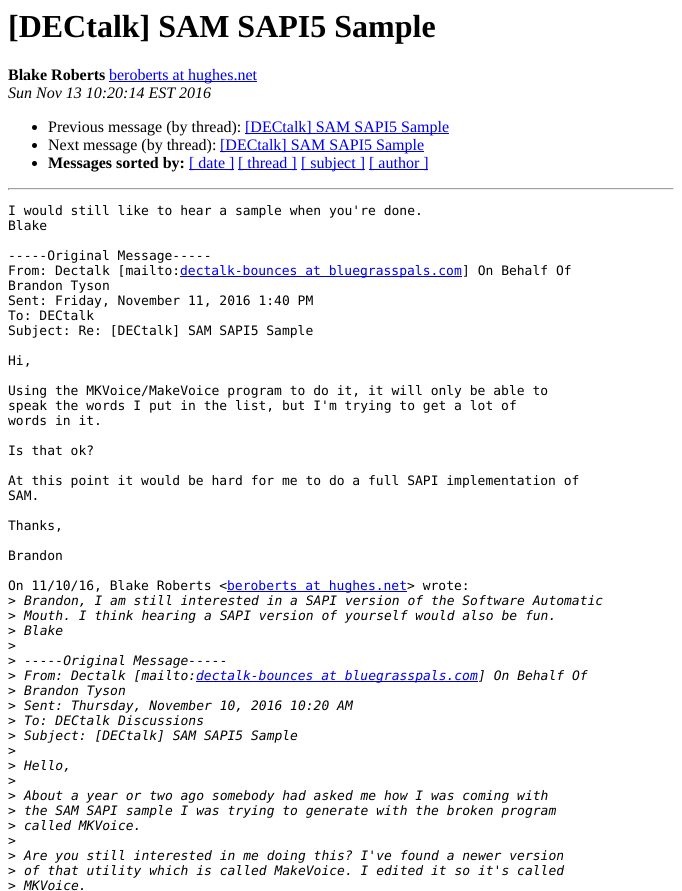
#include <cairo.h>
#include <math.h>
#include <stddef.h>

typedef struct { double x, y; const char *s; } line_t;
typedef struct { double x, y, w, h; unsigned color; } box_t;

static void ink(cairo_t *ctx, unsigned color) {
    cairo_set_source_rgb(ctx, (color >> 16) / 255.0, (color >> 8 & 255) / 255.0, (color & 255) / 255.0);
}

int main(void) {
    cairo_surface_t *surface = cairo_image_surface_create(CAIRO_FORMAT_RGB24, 682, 891);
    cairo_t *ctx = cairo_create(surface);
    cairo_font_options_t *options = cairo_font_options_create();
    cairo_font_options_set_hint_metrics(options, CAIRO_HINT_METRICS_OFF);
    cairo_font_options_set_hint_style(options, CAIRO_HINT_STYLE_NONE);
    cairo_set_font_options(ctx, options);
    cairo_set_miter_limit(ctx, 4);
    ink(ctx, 0xFFFFFF);
    cairo_paint(ctx);
    cairo_select_font_face(ctx, "Liberation Serif", CAIRO_FONT_SLANT_NORMAL, CAIRO_FONT_WEIGHT_BOLD);
    cairo_set_font_size(ctx, 32);
    ink(ctx, 0x000000);
    cairo_move_to(ctx, 8, 37);
    cairo_show_text(ctx, "[DECtalk] SAM SAPI5 Sample");
    cairo_set_font_size(ctx, 16);
    cairo_move_to(ctx, 8, 80);
    cairo_show_text(ctx, "Blake Roberts");
    ink(ctx, 0x0000EE);
    cairo_rectangle(ctx, 109, 81, 148, 1);
    cairo_fill(ctx);
    cairo_select_font_face(ctx, "Liberation Serif", CAIRO_FONT_SLANT_NORMAL, CAIRO_FONT_WEIGHT_NORMAL);
    cairo_move_to(ctx, 109, 80);
    cairo_show_text(ctx, "beroberts at hughes.net");
    cairo_select_font_face(ctx, "Liberation Serif", CAIRO_FONT_SLANT_ITALIC, CAIRO_FONT_WEIGHT_NORMAL);
    ink(ctx, 0x000000);
    cairo_move_to(ctx, 8, 98);
    cairo_show_text(ctx, "Sun Nov 13 10:20:14 EST 2016");
    cairo_new_path(ctx);
    cairo_arc(ctx, 34.5, 127.5, 2.5, 0, 2 * M_PI);
    cairo_fill(ctx);
    cairo_select_font_face(ctx, "Liberation Serif", CAIRO_FONT_SLANT_NORMAL, CAIRO_FONT_WEIGHT_NORMAL);
    cairo_move_to(ctx, 48, 132);
    cairo_show_text(ctx, "Previous message (by thread):");
    ink(ctx, 0x0000EE);
    cairo_rectangle(ctx, 245, 133, 204, 1);
    cairo_fill(ctx);
    cairo_move_to(ctx, 245, 132);
    cairo_show_text(ctx, "[DECtalk] SAM SAPI5 Sample");
    ink(ctx, 0x000000);
    cairo_new_path(ctx);
    cairo_arc(ctx, 34.5, 145.5, 2.5, 0, 2 * M_PI);
    cairo_fill(ctx);
    cairo_move_to(ctx, 48, 150);
    cairo_show_text(ctx, "Next message (by thread):");
    ink(ctx, 0x0000EE);
    cairo_rectangle(ctx, 220, 151, 204, 1);
    cairo_fill(ctx);
    cairo_move_to(ctx, 220, 150);
    cairo_show_text(ctx, "[DECtalk] SAM SAPI5 Sample");
    ink(ctx, 0x000000);
    cairo_new_path(ctx);
    cairo_arc(ctx, 34.5, 163.5, 2.5, 0, 2 * M_PI);
    cairo_fill(ctx);
    cairo_select_font_face(ctx, "Liberation Serif", CAIRO_FONT_SLANT_NORMAL, CAIRO_FONT_WEIGHT_BOLD);
    cairo_move_to(ctx, 48, 168);
    cairo_show_text(ctx, "Messages sorted by:");
    ink(ctx, 0x0000EE);
    cairo_rectangle(ctx, 189, 169, 45, 1);
    cairo_fill(ctx);
    cairo_select_font_face(ctx, "Liberation Serif", CAIRO_FONT_SLANT_NORMAL, CAIRO_FONT_WEIGHT_NORMAL);
    cairo_move_to(ctx, 189, 168);
    cairo_show_text(ctx, "[ date ]");
    cairo_rectangle(ctx, 238, 169, 59, 1);
    cairo_fill(ctx);
    cairo_move_to(ctx, 238, 168);
    cairo_show_text(ctx, "[ thread ]");
    cairo_rectangle(ctx, 301, 169, 64, 1);
    cairo_fill(ctx);
    cairo_move_to(ctx, 301, 168);
    cairo_show_text(ctx, "[ subject ]");
    cairo_rectangle(ctx, 369, 169, 59, 1);
    cairo_fill(ctx);
    cairo_move_to(ctx, 369, 168);
    cairo_show_text(ctx, "[ author ]");
    {
        static const box_t items[] = {
            {8, 188, 666, 1, 0x9F9F9F},
            {673, 188, 1, 2, 0xEEEEEE},
            {8, 189, 666, 1, 0xEEEEEE},
            {8, 188, 1, 2, 0x9F9F9F},
        };
        for (size_t i = 0; i < sizeof items / sizeof *items; i++) {
            ink(ctx, items[i].color);
            cairo_rectangle(ctx, items[i].x, items[i].y, items[i].w, items[i].h);
            cairo_fill(ctx);
        }
    }
    cairo_select_font_face(ctx, "DejaVu Sans Mono", CAIRO_FONT_SLANT_NORMAL, CAIRO_FONT_WEIGHT_NORMAL);
    cairo_set_font_size(ctx, 13);
    ink(ctx, 0x000000);
    {
        static const line_t items[] = {
            {8, 215, "I would still like to hear a sample when you're done."},
            {8, 230, "Blake"},
            {8, 260, "-----Original Message-----"},
            {8, 275, "From: Dectalk [mailto:"},
        };
        for (size_t i = 0; i < sizeof items / sizeof *items; i++) {
            cairo_move_to(ctx, items[i].x, items[i].y);
            cairo_show_text(ctx, items[i].s);
        }
    }
    ink(ctx, 0x0000EE);
    cairo_rectangle(ctx, 180, 276, 282, 1);
    cairo_fill(ctx);
    cairo_move_to(ctx, 180, 275);
    cairo_show_text(ctx, "dectalk-bounces at bluegrasspals.com");
    ink(ctx, 0x000000);
    {
        static const line_t items[] = {
            {462, 275, "] On Behalf Of"},
            {8, 290, "Brandon Tyson"},
            {8, 305, "Sent: Friday, November 11, 2016 1:40 PM"},
            {8, 320, "To: DECtalk"},
            {8, 335, "Subject: Re: [DECtalk] SAM SAPI5 Sample"},
            {8, 365, "Hi,"},
            {8, 395, "Using the MKVoice/MakeVoice program to do it, it will only be able to"},
            {8, 410, "speak the words I put in the list, but I'm trying to get a lot of"},
            {8, 425, "words in it."},
            {8, 455, "Is that ok?"},
            {8, 485, "At this point it would be hard for me to do a full SAPI implementation of"},
            {8, 500, "SAM."},
            {8, 530, "Thanks,"},
            {8, 560, "Brandon"},
            {8, 590, "On 11/10/16, Blake Roberts <"},
        };
        for (size_t i = 0; i < sizeof items / sizeof *items; i++) {
            cairo_move_to(ctx, items[i].x, items[i].y);
            cairo_show_text(ctx, items[i].s);
        }
    }
    ink(ctx, 0x0000EE);
    cairo_rectangle(ctx, 227, 591, 180, 1);
    cairo_fill(ctx);
    cairo_move_to(ctx, 227, 590);
    cairo_show_text(ctx, "beroberts at hughes.net");
    ink(ctx, 0x000000);
    cairo_move_to(ctx, 407, 590);
    cairo_show_text(ctx, "> wrote:");
    cairo_move_to(ctx, 8, 605);
    cairo_show_text(ctx, ">");
    cairo_select_font_face(ctx, "DejaVu Sans Mono", CAIRO_FONT_SLANT_ITALIC, CAIRO_FONT_WEIGHT_NORMAL);
    cairo_move_to(ctx, 24, 605);
    cairo_show_text(ctx, "Brandon, I am still interested in a SAPI version of the Software Automatic");
    cairo_select_font_face(ctx, "DejaVu Sans Mono", CAIRO_FONT_SLANT_NORMAL, CAIRO_FONT_WEIGHT_NORMAL);
    cairo_move_to(ctx, 8, 620);
    cairo_show_text(ctx, ">");
    cairo_select_font_face(ctx, "DejaVu Sans Mono", CAIRO_FONT_SLANT_ITALIC, CAIRO_FONT_WEIGHT_NORMAL);
    cairo_move_to(ctx, 24, 620);
    cairo_show_text(ctx, "Mouth. I think hearing a SAPI version of yourself would also be fun.");
    cairo_select_font_face(ctx, "DejaVu Sans Mono", CAIRO_FONT_SLANT_NORMAL, CAIRO_FONT_WEIGHT_NORMAL);
    cairo_move_to(ctx, 8, 635);
    cairo_show_text(ctx, ">");
    cairo_select_font_face(ctx, "DejaVu Sans Mono", CAIRO_FONT_SLANT_ITALIC, CAIRO_FONT_WEIGHT_NORMAL);
    cairo_move_to(ctx, 24, 635);
    cairo_show_text(ctx, "Blake");
    cairo_select_font_face(ctx, "DejaVu Sans Mono", CAIRO_FONT_SLANT_NORMAL, CAIRO_FONT_WEIGHT_NORMAL);
    cairo_move_to(ctx, 8, 650);
    cairo_show_text(ctx, ">");
    cairo_move_to(ctx, 8, 665);
    cairo_show_text(ctx, ">");
    cairo_select_font_face(ctx, "DejaVu Sans Mono", CAIRO_FONT_SLANT_ITALIC, CAIRO_FONT_WEIGHT_NORMAL);
    cairo_move_to(ctx, 24, 665);
    cairo_show_text(ctx, "-----Original Message-----");
    cairo_select_font_face(ctx, "DejaVu Sans Mono", CAIRO_FONT_SLANT_NORMAL, CAIRO_FONT_WEIGHT_NORMAL);
    cairo_move_to(ctx, 8, 680);
    cairo_show_text(ctx, ">");
    cairo_select_font_face(ctx, "DejaVu Sans Mono", CAIRO_FONT_SLANT_ITALIC, CAIRO_FONT_WEIGHT_NORMAL);
    cairo_move_to(ctx, 24, 680);
    cairo_show_text(ctx, "From: Dectalk [mailto:");
    ink(ctx, 0x0000EE);
    cairo_rectangle(ctx, 196, 681, 282, 1);
    cairo_fill(ctx);
    cairo_move_to(ctx, 196, 680);
    cairo_show_text(ctx, "dectalk-bounces at bluegrasspals.com");
    ink(ctx, 0x000000);
    cairo_move_to(ctx, 478, 680);
    cairo_show_text(ctx, "] On Behalf Of");
    cairo_select_font_face(ctx, "DejaVu Sans Mono", CAIRO_FONT_SLANT_NORMAL, CAIRO_FONT_WEIGHT_NORMAL);
    cairo_move_to(ctx, 8, 695);
    cairo_show_text(ctx, ">");
    cairo_select_font_face(ctx, "DejaVu Sans Mono", CAIRO_FONT_SLANT_ITALIC, CAIRO_FONT_WEIGHT_NORMAL);
    cairo_move_to(ctx, 24, 695);
    cairo_show_text(ctx, "Brandon Tyson");
    cairo_select_font_face(ctx, "DejaVu Sans Mono", CAIRO_FONT_SLANT_NORMAL, CAIRO_FONT_WEIGHT_NORMAL);
    cairo_move_to(ctx, 8, 710);
    cairo_show_text(ctx, ">");
    cairo_select_font_face(ctx, "DejaVu Sans Mono", CAIRO_FONT_SLANT_ITALIC, CAIRO_FONT_WEIGHT_NORMAL);
    cairo_move_to(ctx, 24, 710);
    cairo_show_text(ctx, "Sent: Thursday, November 10, 2016 10:20 AM");
    cairo_select_font_face(ctx, "DejaVu Sans Mono", CAIRO_FONT_SLANT_NORMAL, CAIRO_FONT_WEIGHT_NORMAL);
    cairo_move_to(ctx, 8, 725);
    cairo_show_text(ctx, ">");
    cairo_select_font_face(ctx, "DejaVu Sans Mono", CAIRO_FONT_SLANT_ITALIC, CAIRO_FONT_WEIGHT_NORMAL);
    cairo_move_to(ctx, 24, 725);
    cairo_show_text(ctx, "To: DECtalk Discussions");
    cairo_select_font_face(ctx, "DejaVu Sans Mono", CAIRO_FONT_SLANT_NORMAL, CAIRO_FONT_WEIGHT_NORMAL);
    cairo_move_to(ctx, 8, 740);
    cairo_show_text(ctx, ">");
    cairo_select_font_face(ctx, "DejaVu Sans Mono", CAIRO_FONT_SLANT_ITALIC, CAIRO_FONT_WEIGHT_NORMAL);
    cairo_move_to(ctx, 24, 740);
    cairo_show_text(ctx, "Subject: [DECtalk] SAM SAPI5 Sample");
    cairo_select_font_face(ctx, "DejaVu Sans Mono", CAIRO_FONT_SLANT_NORMAL, CAIRO_FONT_WEIGHT_NORMAL);
    cairo_move_to(ctx, 8, 755);
    cairo_show_text(ctx, ">");
    cairo_move_to(ctx, 8, 770);
    cairo_show_text(ctx, ">");
    cairo_select_font_face(ctx, "DejaVu Sans Mono", CAIRO_FONT_SLANT_ITALIC, CAIRO_FONT_WEIGHT_NORMAL);
    cairo_move_to(ctx, 24, 770);
    cairo_show_text(ctx, "Hello,");
    cairo_select_font_face(ctx, "DejaVu Sans Mono", CAIRO_FONT_SLANT_NORMAL, CAIRO_FONT_WEIGHT_NORMAL);
    cairo_move_to(ctx, 8, 785);
    cairo_show_text(ctx, ">");
    cairo_move_to(ctx, 8, 800);
    cairo_show_text(ctx, ">");
    cairo_select_font_face(ctx, "DejaVu Sans Mono", CAIRO_FONT_SLANT_ITALIC, CAIRO_FONT_WEIGHT_NORMAL);
    cairo_move_to(ctx, 24, 800);
    cairo_show_text(ctx, "About a year or two ago somebody had asked me how I was coming with");
    cairo_select_font_face(ctx, "DejaVu Sans Mono", CAIRO_FONT_SLANT_NORMAL, CAIRO_FONT_WEIGHT_NORMAL);
    cairo_move_to(ctx, 8, 815);
    cairo_show_text(ctx, ">");
    cairo_select_font_face(ctx, "DejaVu Sans Mono", CAIRO_FONT_SLANT_ITALIC, CAIRO_FONT_WEIGHT_NORMAL);
    cairo_move_to(ctx, 24, 815);
    cairo_show_text(ctx, "the SAM SAPI sample I was trying to generate with the broken program");
    cairo_select_font_face(ctx, "DejaVu Sans Mono", CAIRO_FONT_SLANT_NORMAL, CAIRO_FONT_WEIGHT_NORMAL);
    cairo_move_to(ctx, 8, 830);
    cairo_show_text(ctx, ">");
    cairo_select_font_face(ctx, "DejaVu Sans Mono", CAIRO_FONT_SLANT_ITALIC, CAIRO_FONT_WEIGHT_NORMAL);
    cairo_move_to(ctx, 24, 830);
    cairo_show_text(ctx, "called MKVoice.");
    cairo_select_font_face(ctx, "DejaVu Sans Mono", CAIRO_FONT_SLANT_NORMAL, CAIRO_FONT_WEIGHT_NORMAL);
    cairo_move_to(ctx, 8, 845);
    cairo_show_text(ctx, ">");
    cairo_move_to(ctx, 8, 860);
    cairo_show_text(ctx, ">");
    cairo_select_font_face(ctx, "DejaVu Sans Mono", CAIRO_FONT_SLANT_ITALIC, CAIRO_FONT_WEIGHT_NORMAL);
    cairo_move_to(ctx, 24, 860);
    cairo_show_text(ctx, "Are you still interested in me doing this? I've found a newer version");
    cairo_select_font_face(ctx, "DejaVu Sans Mono", CAIRO_FONT_SLANT_NORMAL, CAIRO_FONT_WEIGHT_NORMAL);
    cairo_move_to(ctx, 8, 875);
    cairo_show_text(ctx, ">");
    cairo_select_font_face(ctx, "DejaVu Sans Mono", CAIRO_FONT_SLANT_ITALIC, CAIRO_FONT_WEIGHT_NORMAL);
    cairo_move_to(ctx, 24, 875);
    cairo_show_text(ctx, "of that utility which is called MakeVoice. I edited it so it's called");
    cairo_select_font_face(ctx, "DejaVu Sans Mono", CAIRO_FONT_SLANT_NORMAL, CAIRO_FONT_WEIGHT_NORMAL);
    cairo_move_to(ctx, 8, 890);
    cairo_show_text(ctx, ">");
    cairo_select_font_face(ctx, "DejaVu Sans Mono", CAIRO_FONT_SLANT_ITALIC, CAIRO_FONT_WEIGHT_NORMAL);
    cairo_move_to(ctx, 24, 890);
    cairo_show_text(ctx, "MKVoice.");
    cairo_surface_write_to_png(surface, "image.png");
    cairo_font_options_destroy(options);
    cairo_destroy(ctx);
    cairo_surface_destroy(surface);
    return 0;
}
